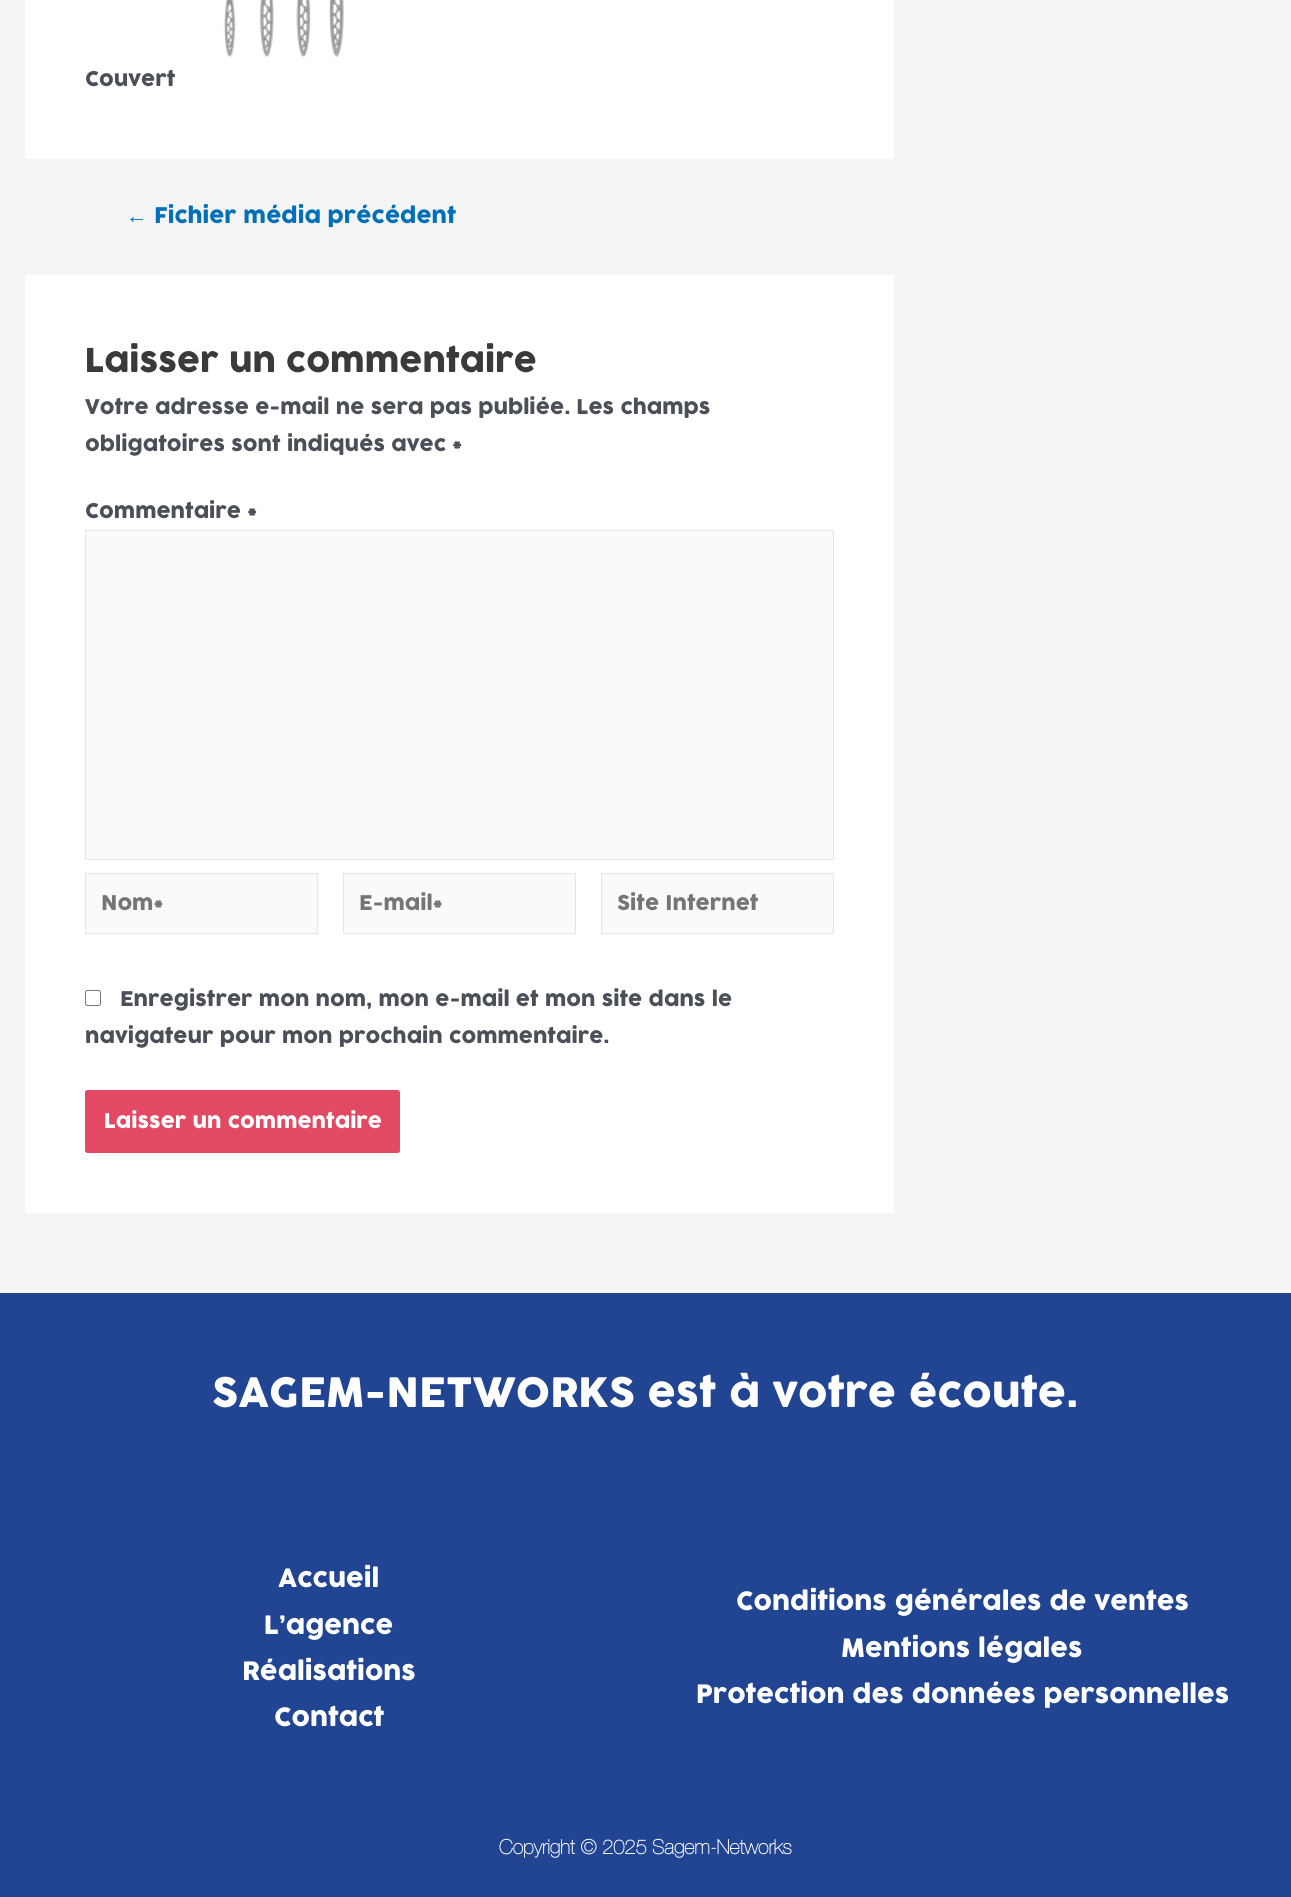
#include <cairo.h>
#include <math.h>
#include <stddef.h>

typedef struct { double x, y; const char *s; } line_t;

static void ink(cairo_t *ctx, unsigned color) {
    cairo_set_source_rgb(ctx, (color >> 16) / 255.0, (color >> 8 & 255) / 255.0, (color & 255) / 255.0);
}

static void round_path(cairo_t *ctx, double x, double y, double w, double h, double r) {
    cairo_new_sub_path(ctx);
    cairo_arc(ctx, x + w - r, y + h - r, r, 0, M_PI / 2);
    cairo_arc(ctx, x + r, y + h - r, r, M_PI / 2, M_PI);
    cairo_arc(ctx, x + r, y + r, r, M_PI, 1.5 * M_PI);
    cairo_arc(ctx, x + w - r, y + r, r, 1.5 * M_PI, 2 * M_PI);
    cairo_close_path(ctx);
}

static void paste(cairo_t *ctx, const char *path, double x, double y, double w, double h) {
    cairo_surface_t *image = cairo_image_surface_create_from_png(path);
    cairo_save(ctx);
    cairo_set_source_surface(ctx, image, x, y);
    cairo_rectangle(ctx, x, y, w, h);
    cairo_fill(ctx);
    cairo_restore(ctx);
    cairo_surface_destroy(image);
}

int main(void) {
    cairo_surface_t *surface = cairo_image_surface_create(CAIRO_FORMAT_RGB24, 1291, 1897);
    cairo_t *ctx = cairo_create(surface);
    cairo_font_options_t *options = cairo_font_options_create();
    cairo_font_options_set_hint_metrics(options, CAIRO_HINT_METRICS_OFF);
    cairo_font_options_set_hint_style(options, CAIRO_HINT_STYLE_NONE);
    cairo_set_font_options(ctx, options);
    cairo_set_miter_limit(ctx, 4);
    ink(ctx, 0xF5F5F5);
    cairo_paint(ctx);
    ink(ctx, 0xFFFFFF);
    cairo_rectangle(ctx, 25, 0, 869, 159);
    cairo_fill(ctx);
    paste(ctx, "media/1.png", 223, 0, 121, 57);
    cairo_select_font_face(ctx, "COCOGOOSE", CAIRO_FONT_SLANT_NORMAL, CAIRO_FONT_WEIGHT_NORMAL);
    cairo_set_font_size(ctx, 20);
    ink(ctx, 0x4B4F58);
    cairo_move_to(ctx, 85, 86);
    cairo_show_text(ctx, "Couvert");
    cairo_select_font_face(ctx, "Liberation Serif", CAIRO_FONT_SLANT_NORMAL, CAIRO_FONT_WEIGHT_NORMAL);
    cairo_set_font_size(ctx, 21.3);
    ink(ctx, 0x0170B9);
    cairo_move_to(ctx, 126, 223);
    cairo_show_text(ctx, "←");
    cairo_select_font_face(ctx, "COCOGOOSE", CAIRO_FONT_SLANT_NORMAL, CAIRO_FONT_WEIGHT_NORMAL);
    cairo_move_to(ctx, 154, 223);
    cairo_show_text(ctx, "Fichier média précédent");
    ink(ctx, 0xFFFFFF);
    cairo_rectangle(ctx, 25, 275, 869, 938);
    cairo_fill(ctx);
    cairo_set_font_size(ctx, 32.5);
    ink(ctx, 0x3A3A3A);
    cairo_move_to(ctx, 85, 372);
    cairo_show_text(ctx, "Laisser un commentaire");
    cairo_set_font_size(ctx, 20);
    ink(ctx, 0x4B4F58);
    {
        static const line_t items[] = {
            {85, 414, "Votre adresse e-mail ne sera pas publiée. Les champs"},
            {85, 451, "obligatoires sont indiqués avec *"},
            {85, 518, "Commentaire *"},
        };
        for (size_t i = 0; i < sizeof items / sizeof *items; i++) {
            cairo_move_to(ctx, items[i].x, items[i].y);
            cairo_show_text(ctx, items[i].s);
        }
    }
    ink(ctx, 0xFAFAFA);
    cairo_rectangle(ctx, 85.5, 530.5, 748, 329);
    cairo_fill_preserve(ctx);
    ink(ctx, 0xE5E5E5);
    cairo_set_line_width(ctx, 1);
    cairo_stroke(ctx);
    ink(ctx, 0xFAFAFA);
    cairo_rectangle(ctx, 85.5, 873.5, 232, 60);
    cairo_fill_preserve(ctx);
    ink(ctx, 0xE5E5E5);
    cairo_stroke(ctx);
    ink(ctx, 0x757575);
    cairo_move_to(ctx, 101, 910);
    cairo_show_text(ctx, "Nom*");
    ink(ctx, 0xFAFAFA);
    cairo_rectangle(ctx, 343.5, 873.5, 232, 60);
    cairo_fill_preserve(ctx);
    ink(ctx, 0xE5E5E5);
    cairo_stroke(ctx);
    ink(ctx, 0x757575);
    cairo_move_to(ctx, 359, 910);
    cairo_show_text(ctx, "E-mail*");
    ink(ctx, 0xFAFAFA);
    cairo_rectangle(ctx, 601.5, 873.5, 232, 60);
    cairo_fill_preserve(ctx);
    ink(ctx, 0xE5E5E5);
    cairo_stroke(ctx);
    ink(ctx, 0x757575);
    cairo_move_to(ctx, 617, 910);
    cairo_show_text(ctx, "Site Internet");
    round_path(ctx, 85.5, 990.5, 15, 15, 2);
    ink(ctx, 0x767676);
    cairo_stroke(ctx);
    ink(ctx, 0x4B4F58);
    cairo_move_to(ctx, 120, 1006);
    cairo_show_text(ctx, "Enregistrer mon nom, mon e-mail et mon site dans le");
    cairo_move_to(ctx, 85, 1043);
    cairo_show_text(ctx, "navigateur pour mon prochain commentaire.");
    ink(ctx, 0xE34963);
    round_path(ctx, 85, 1090, 315, 63, 2.5);
    cairo_fill(ctx);
    ink(ctx, 0xFFFFFF);
    cairo_move_to(ctx, 104, 1128);
    cairo_show_text(ctx, "Laisser un commentaire");
    ink(ctx, 0x224593);
    cairo_rectangle(ctx, 0, 1293, 1291, 604);
    cairo_fill(ctx);
    cairo_set_font_size(ctx, 40);
    ink(ctx, 0xFFFFFF);
    cairo_move_to(ctx, 212, 1407);
    cairo_show_text(ctx, "SAGEM-NETWORKS est à votre écoute.");
    cairo_set_font_size(ctx, 25);
    {
        static const line_t items[] = {
            {278, 1587, "Accueil"},
            {264, 1634, "L’agence"},
            {242, 1680, "Réalisations"},
            {274, 1726, "Contact"},
            {736, 1610, "Conditions générales de ventes"},
            {841, 1657, "Mentions légales"},
            {696, 1703, "Protection des données personnelles"},
        };
        for (size_t i = 0; i < sizeof items / sizeof *items; i++) {
            cairo_move_to(ctx, items[i].x, items[i].y);
            cairo_show_text(ctx, items[i].s);
        }
    }
    cairo_select_font_face(ctx, "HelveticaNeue", CAIRO_FONT_SLANT_NORMAL, CAIRO_FONT_WEIGHT_BOLD);
    cairo_set_font_size(ctx, 20);
    cairo_move_to(ctx, 499, 1854);
    cairo_show_text(ctx, "Copyright © 2025 Sagem-Networks");
    cairo_surface_write_to_png(surface, "image.png");
    cairo_font_options_destroy(options);
    cairo_destroy(ctx);
    cairo_surface_destroy(surface);
    return 0;
}
